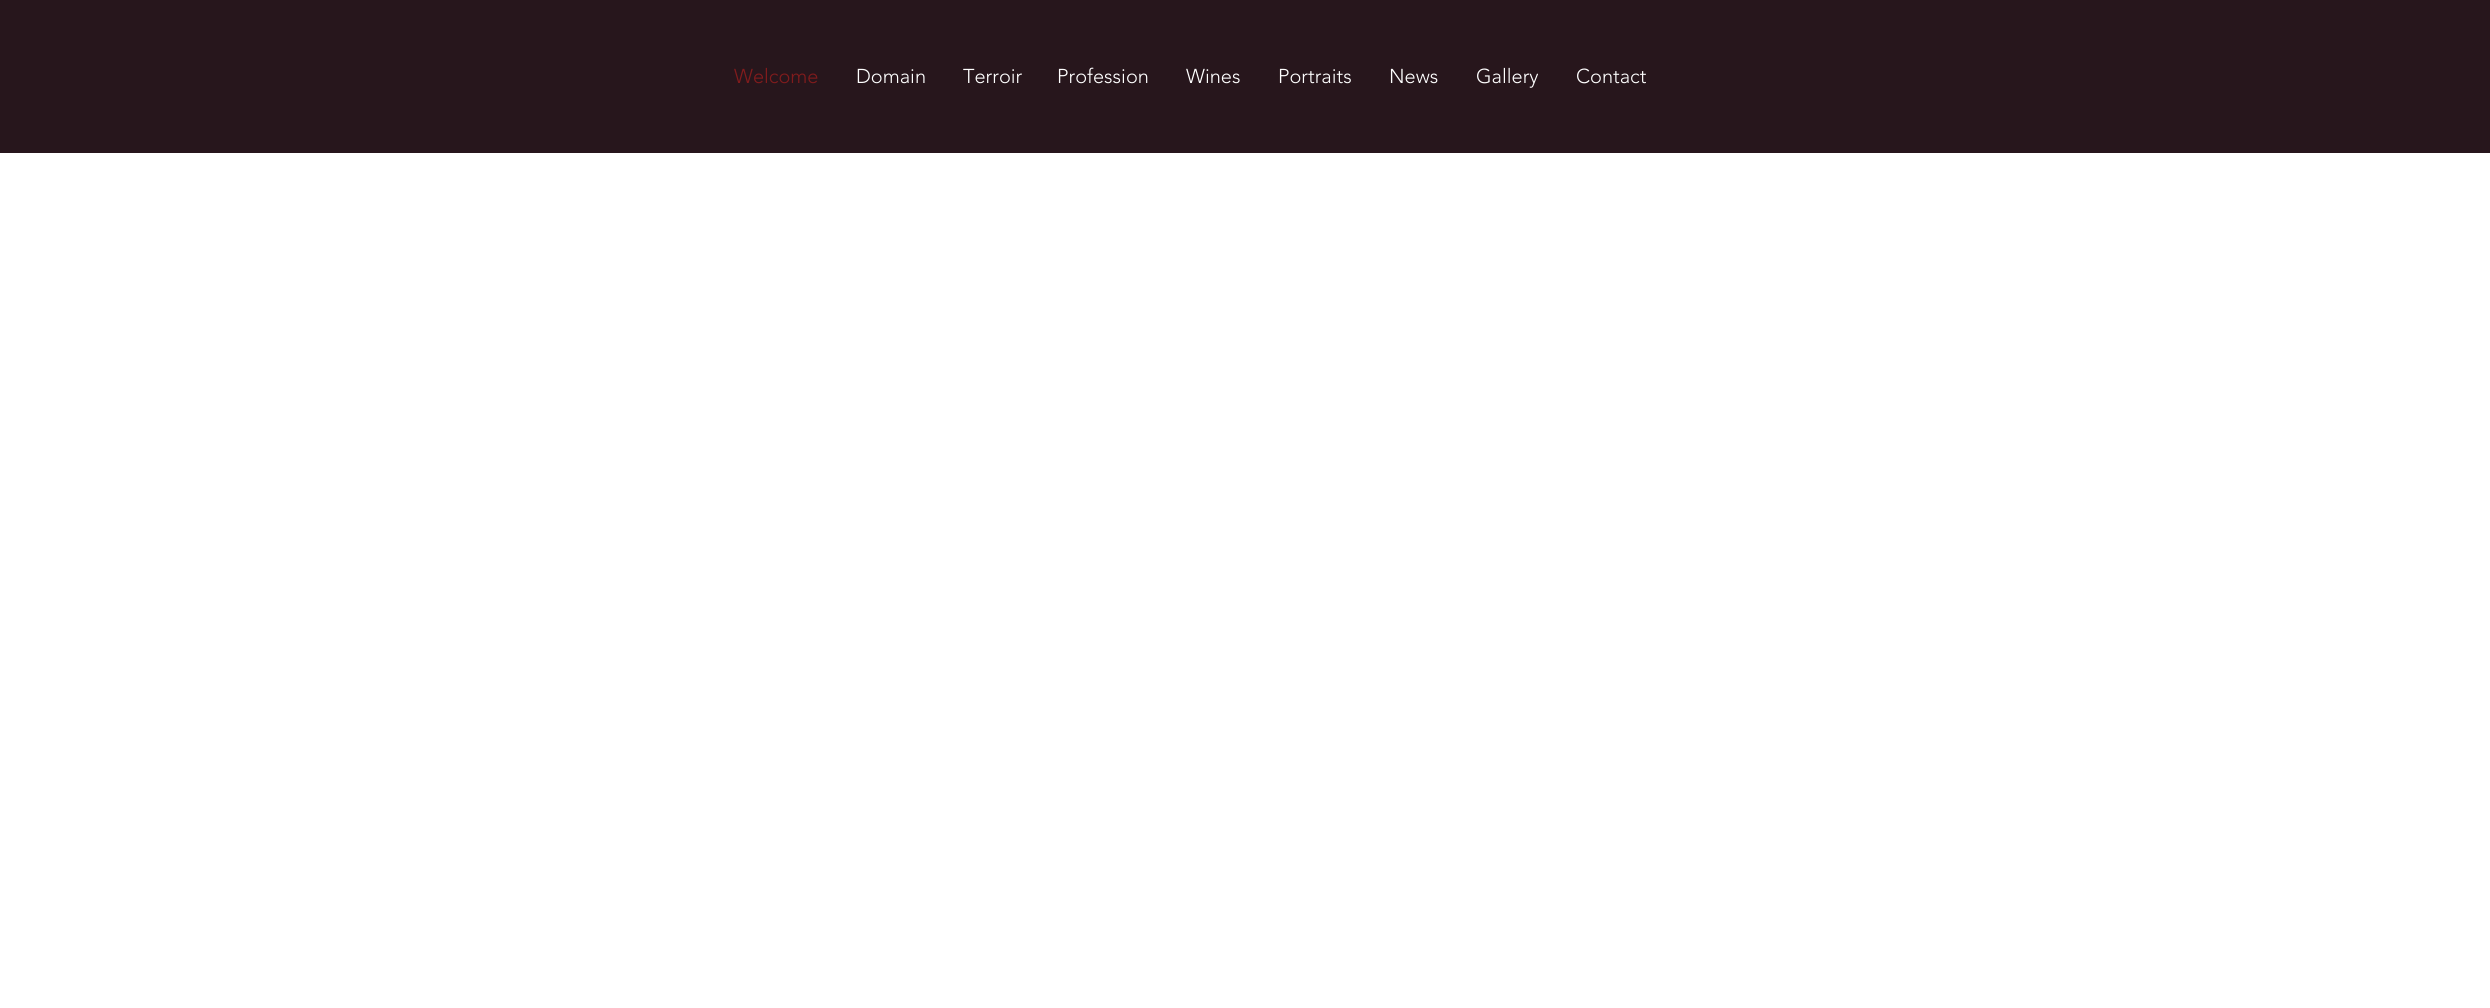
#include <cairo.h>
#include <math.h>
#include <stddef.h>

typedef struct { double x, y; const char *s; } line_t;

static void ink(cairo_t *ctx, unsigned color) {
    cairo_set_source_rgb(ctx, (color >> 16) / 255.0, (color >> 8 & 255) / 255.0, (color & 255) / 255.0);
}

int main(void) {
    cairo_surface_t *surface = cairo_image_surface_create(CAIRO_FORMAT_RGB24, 2490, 1008);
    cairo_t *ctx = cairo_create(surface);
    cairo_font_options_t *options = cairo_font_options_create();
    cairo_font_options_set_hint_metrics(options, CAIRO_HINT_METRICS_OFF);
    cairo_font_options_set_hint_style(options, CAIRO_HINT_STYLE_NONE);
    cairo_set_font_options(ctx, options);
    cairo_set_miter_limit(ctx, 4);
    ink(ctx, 0xFFFFFF);
    cairo_paint(ctx);
    ink(ctx, 0x27161C);
    cairo_rectangle(ctx, 0, 0, 2490, 153);
    cairo_fill(ctx);
    cairo_select_font_face(ctx, "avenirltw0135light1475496 Light", CAIRO_FONT_SLANT_NORMAL, CAIRO_FONT_WEIGHT_NORMAL);
    cairo_set_font_size(ctx, 20);
    ink(ctx, 0x821B1C);
    cairo_move_to(ctx, 734, 83);
    cairo_show_text(ctx, "Welcome");
    ink(ctx, 0xFFFFFF);
    {
        static const line_t items[] = {
            {856, 83, "Domain"},
            {963, 83, "Terroir"},
            {1057, 83, "Profession"},
            {1186, 83, "Wines"},
            {1278, 83, "Portraits"},
            {1389, 83, "News"},
            {1476, 83, "Gallery"},
            {1576, 83, "Contact"},
        };
        for (size_t i = 0; i < sizeof items / sizeof *items; i++) {
            cairo_move_to(ctx, items[i].x, items[i].y);
            cairo_show_text(ctx, items[i].s);
        }
    }
    cairo_surface_write_to_png(surface, "image.png");
    cairo_font_options_destroy(options);
    cairo_destroy(ctx);
    cairo_surface_destroy(surface);
    return 0;
}
